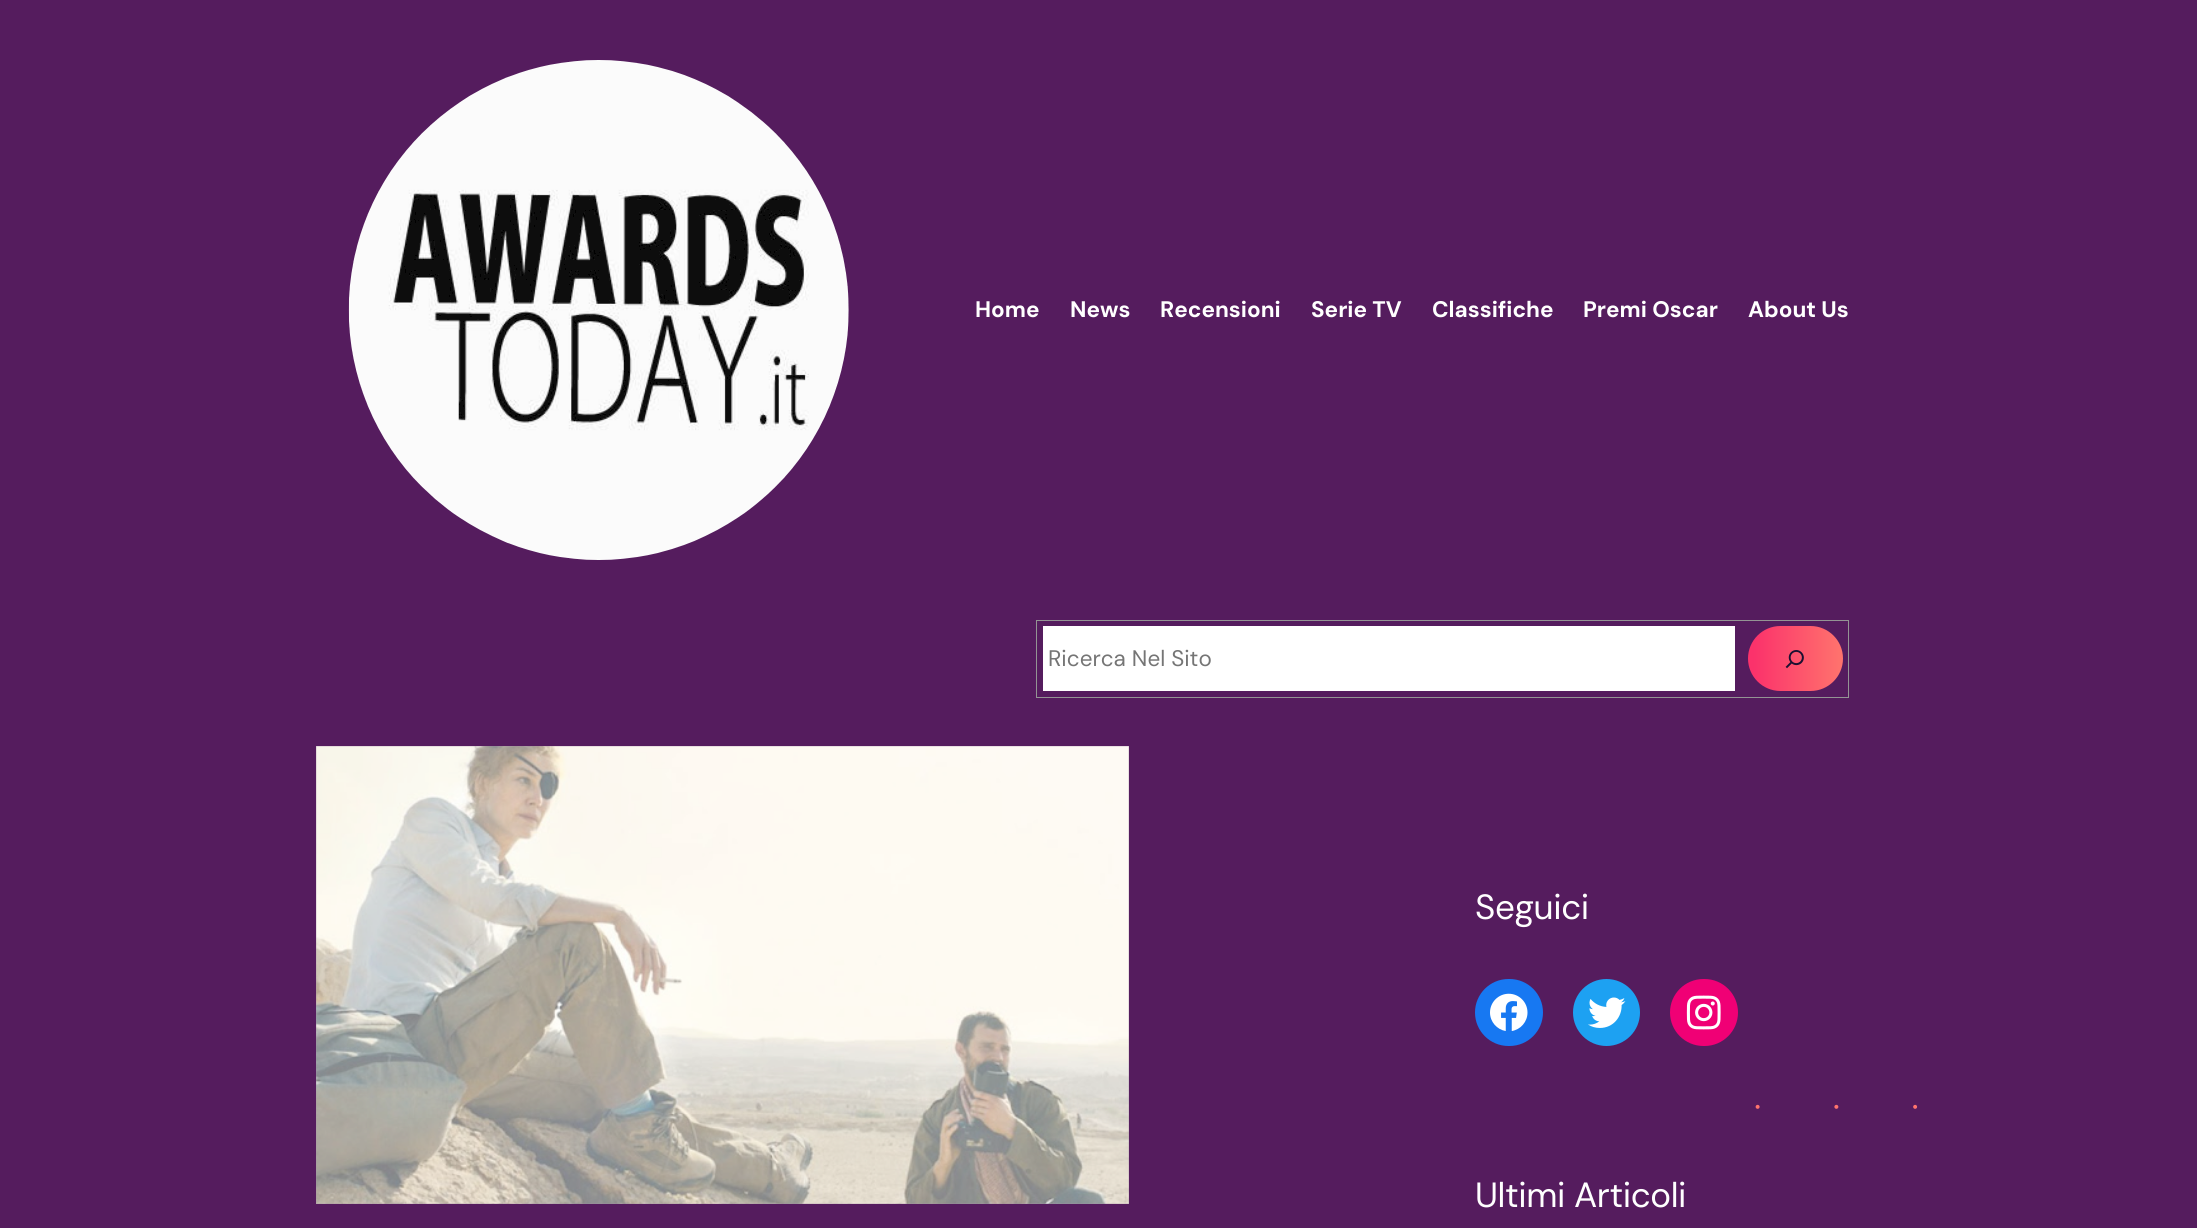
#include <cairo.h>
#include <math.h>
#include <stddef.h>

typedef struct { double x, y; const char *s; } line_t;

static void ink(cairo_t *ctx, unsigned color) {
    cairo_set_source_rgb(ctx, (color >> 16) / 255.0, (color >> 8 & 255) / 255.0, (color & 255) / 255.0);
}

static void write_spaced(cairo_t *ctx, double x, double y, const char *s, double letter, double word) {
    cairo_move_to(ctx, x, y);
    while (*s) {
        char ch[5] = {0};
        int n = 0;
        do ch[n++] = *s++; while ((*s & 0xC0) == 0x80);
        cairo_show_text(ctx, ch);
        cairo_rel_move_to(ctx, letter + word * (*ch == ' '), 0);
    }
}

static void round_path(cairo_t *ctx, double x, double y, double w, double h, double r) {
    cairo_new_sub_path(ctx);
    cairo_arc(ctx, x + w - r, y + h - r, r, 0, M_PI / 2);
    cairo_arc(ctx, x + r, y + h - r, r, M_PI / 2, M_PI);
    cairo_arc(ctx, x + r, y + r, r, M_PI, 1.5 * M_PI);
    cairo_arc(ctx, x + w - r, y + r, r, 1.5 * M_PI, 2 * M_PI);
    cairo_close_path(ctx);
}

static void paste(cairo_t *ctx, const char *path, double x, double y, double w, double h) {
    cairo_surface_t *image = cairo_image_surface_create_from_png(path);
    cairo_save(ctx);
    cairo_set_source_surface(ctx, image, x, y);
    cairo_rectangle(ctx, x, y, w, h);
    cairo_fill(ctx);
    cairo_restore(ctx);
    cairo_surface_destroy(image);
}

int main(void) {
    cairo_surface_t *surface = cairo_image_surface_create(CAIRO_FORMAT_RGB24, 2197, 1228);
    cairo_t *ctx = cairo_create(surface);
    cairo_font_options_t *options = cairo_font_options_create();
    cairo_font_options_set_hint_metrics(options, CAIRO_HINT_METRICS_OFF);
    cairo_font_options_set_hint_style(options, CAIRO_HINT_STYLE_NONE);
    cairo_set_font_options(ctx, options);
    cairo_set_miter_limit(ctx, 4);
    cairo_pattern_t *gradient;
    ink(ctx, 0x551C5E);
    cairo_paint(ctx);
    ink(ctx, 0xAA8EAF);
    cairo_rectangle(ctx, 316, 746, 813, 458);
    cairo_fill(ctx);
    paste(ctx, "media/1.png", 348, 60, 501, 500);
    cairo_select_font_face(ctx, "DM Sans", CAIRO_FONT_SLANT_NORMAL, CAIRO_FONT_WEIGHT_BOLD);
    cairo_set_font_size(ctx, 22.5);
    ink(ctx, 0xFFFFFF);
    {
        static const line_t items[] = {
            {975, 317, "Home"},
            {1070, 317, "News"},
            {1160, 317, "Recensioni"},
            {1311, 317, "Serie TV"},
            {1432, 317, "Classifiche"},
            {1583, 317, "Premi Oscar"},
            {1748, 317, "About Us"},
        };
        for (size_t i = 0; i < sizeof items / sizeof *items; i++) {
            cairo_move_to(ctx, items[i].x, items[i].y);
            cairo_show_text(ctx, items[i].s);
        }
    }
    cairo_rectangle(ctx, 1036.5, 620.5, 812, 77);
    ink(ctx, 0x949494);
    cairo_set_line_width(ctx, 1);
    cairo_stroke(ctx);
    ink(ctx, 0xFFFFFF);
    cairo_rectangle(ctx, 1043, 626, 692, 65);
    cairo_fill(ctx);
    cairo_select_font_face(ctx, "DM Sans", CAIRO_FONT_SLANT_NORMAL, CAIRO_FONT_WEIGHT_NORMAL);
    ink(ctx, 0x757575);
    cairo_move_to(ctx, 1048, 666);
    cairo_show_text(ctx, "Ricerca Nel Sito");
    gradient = cairo_pattern_create_linear(1748, 659, 1843, 659);
    cairo_pattern_add_color_stop_rgba(gradient, 0.06, 0.984, 0.196, 0.42, 1);
    cairo_pattern_add_color_stop_rgba(gradient, 1, 1, 0.455, 0.427, 1);
    cairo_set_source(ctx, gradient);
    cairo_pattern_destroy(gradient);
    round_path(ctx, 1748, 626, 95, 65, 32.5);
    cairo_fill(ctx);
    paste(ctx, "media/2.png", 1785, 650, 19, 19);
    paste(ctx, "media/3.png", 316, 746, 813, 458);
    cairo_set_font_size(ctx, 35);
    ink(ctx, 0xFFFFFF);
    write_spaced(ctx, 1475, 919, "Seguici", -0.4, 0);
    ink(ctx, 0x1778F2);
    round_path(ctx, 1475, 979, 68, 67, 33.5);
    cairo_fill(ctx);
    paste(ctx, "media/4.png", 1490, 993, 38, 38);
    ink(ctx, 0x1DA1F2);
    cairo_arc(ctx, 1606.5, 1012.5, 33.5, 0, 2 * M_PI);
    cairo_fill(ctx);
    paste(ctx, "media/5.png", 1588, 997, 38, 31);
    ink(ctx, 0xF00075);
    round_path(ctx, 1670, 979, 68, 67, 33.5);
    cairo_fill(ctx);
    paste(ctx, "media/6.png", 1686, 995, 35, 35);
    cairo_select_font_face(ctx, "Liberation Serif", CAIRO_FONT_SLANT_NORMAL, CAIRO_FONT_WEIGHT_NORMAL);
    cairo_set_font_size(ctx, 33.75);
    ink(ctx, 0xFF746D);
    write_spaced(ctx, 1752, 1118, "···", 67.5, 0);
    cairo_select_font_face(ctx, "DM Sans", CAIRO_FONT_SLANT_NORMAL, CAIRO_FONT_WEIGHT_NORMAL);
    cairo_set_font_size(ctx, 35);
    ink(ctx, 0xFFFFFF);
    write_spaced(ctx, 1475, 1207, "Ultimi Articoli", -0.4, 0);
    cairo_surface_write_to_png(surface, "image.png");
    cairo_font_options_destroy(options);
    cairo_destroy(ctx);
    cairo_surface_destroy(surface);
    return 0;
}
